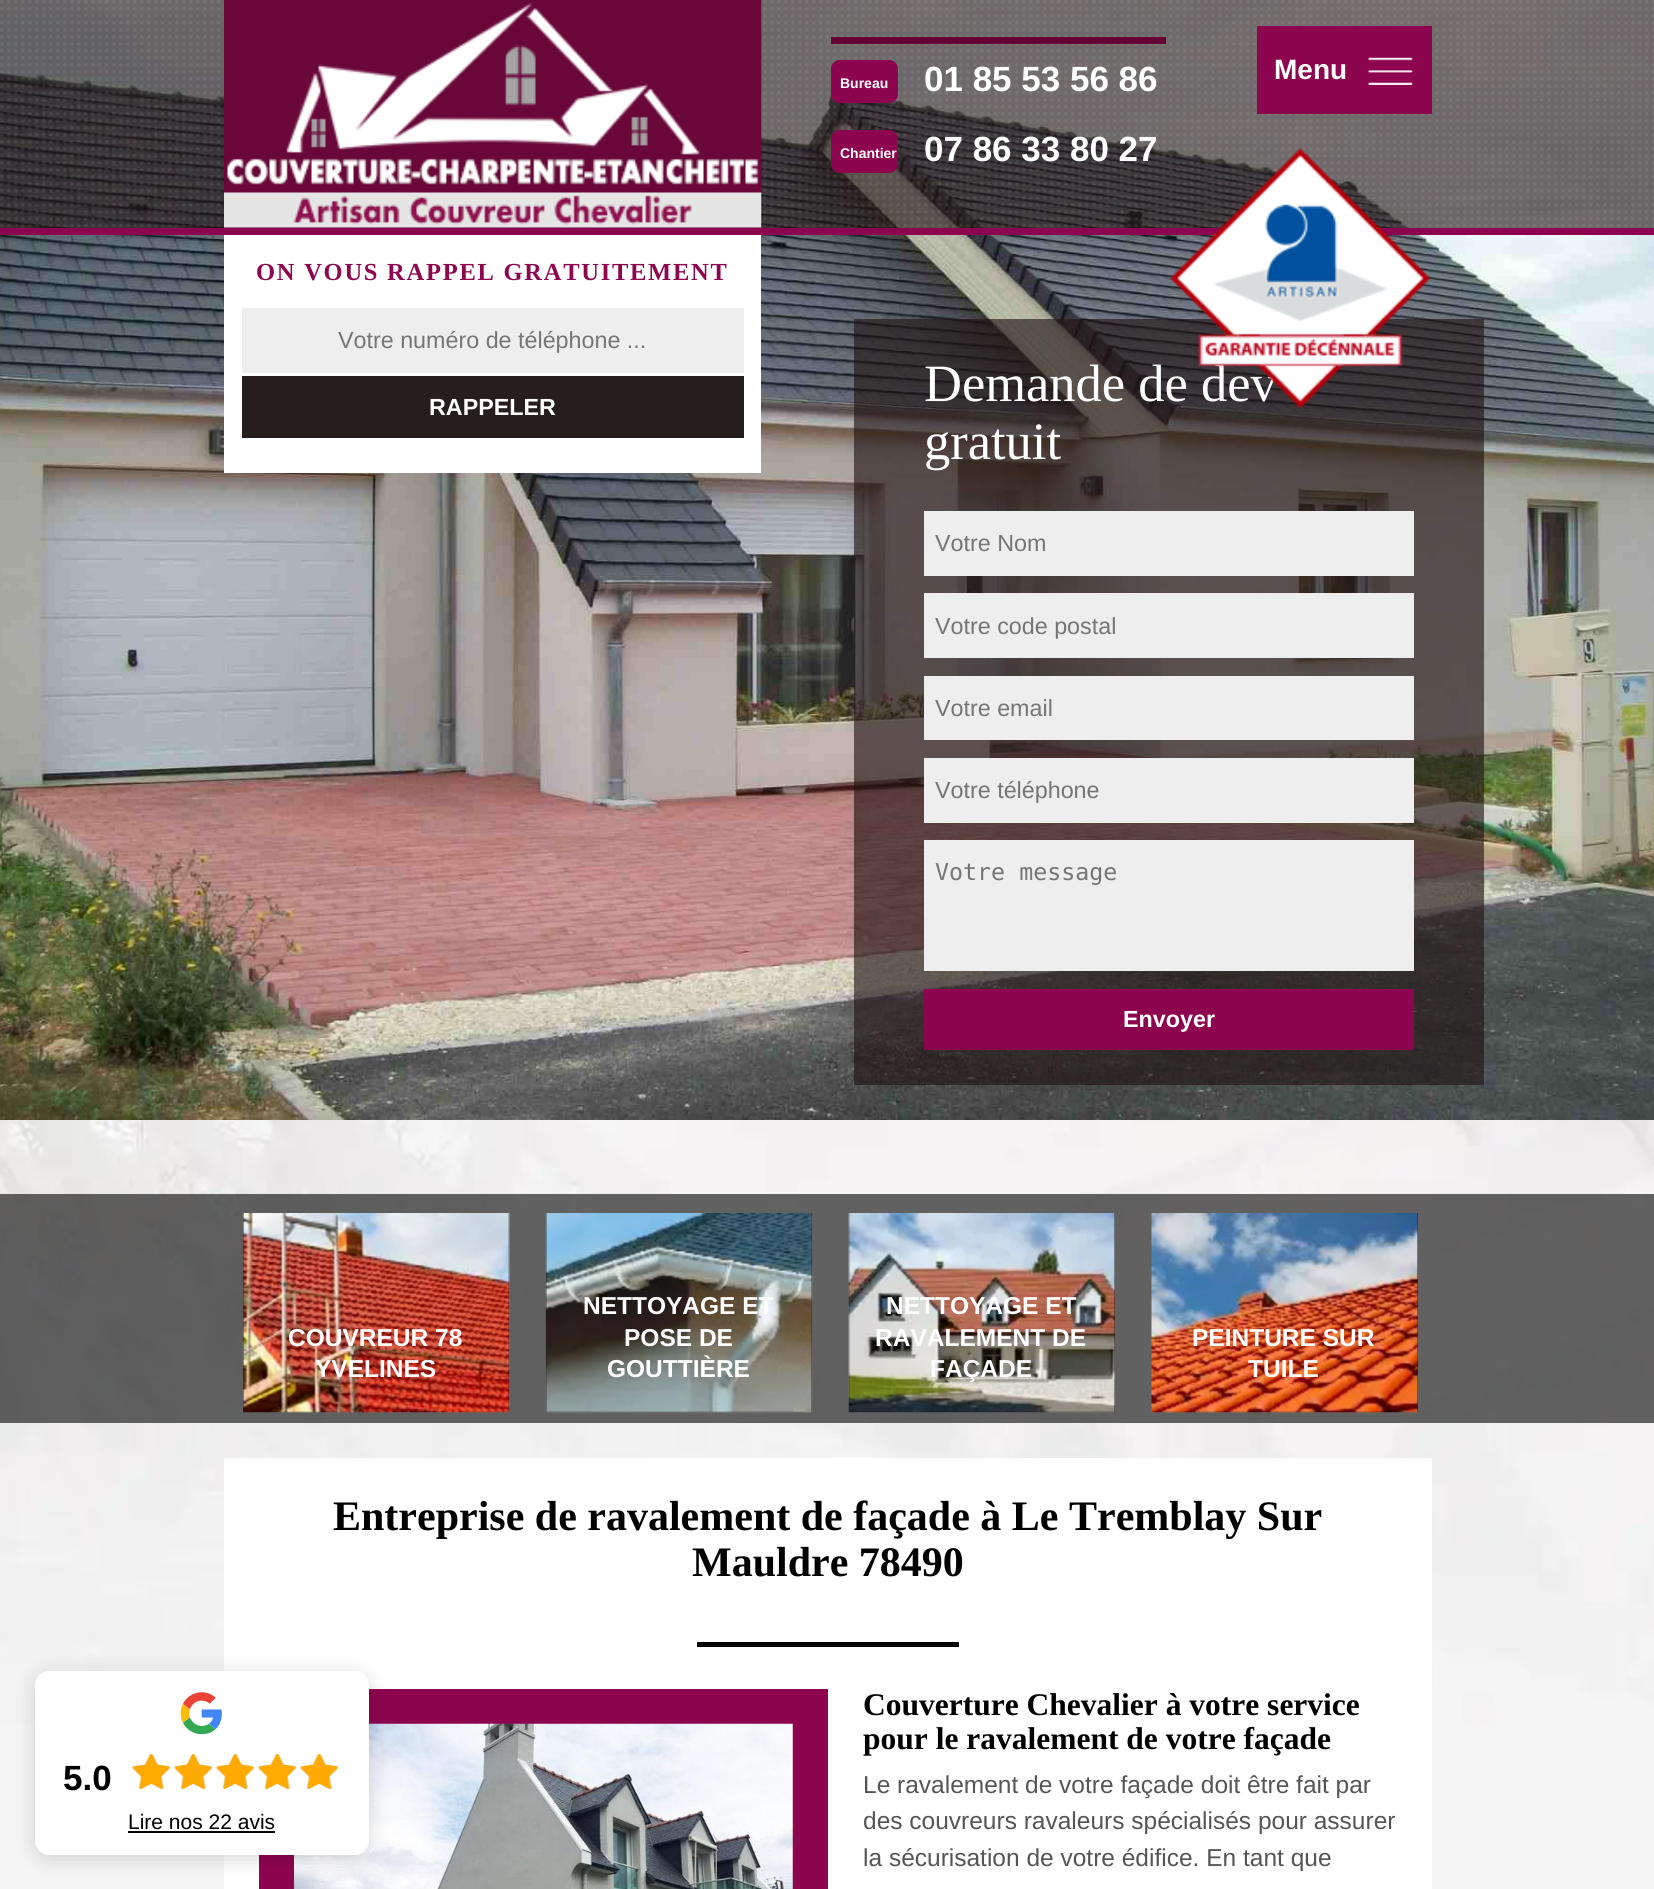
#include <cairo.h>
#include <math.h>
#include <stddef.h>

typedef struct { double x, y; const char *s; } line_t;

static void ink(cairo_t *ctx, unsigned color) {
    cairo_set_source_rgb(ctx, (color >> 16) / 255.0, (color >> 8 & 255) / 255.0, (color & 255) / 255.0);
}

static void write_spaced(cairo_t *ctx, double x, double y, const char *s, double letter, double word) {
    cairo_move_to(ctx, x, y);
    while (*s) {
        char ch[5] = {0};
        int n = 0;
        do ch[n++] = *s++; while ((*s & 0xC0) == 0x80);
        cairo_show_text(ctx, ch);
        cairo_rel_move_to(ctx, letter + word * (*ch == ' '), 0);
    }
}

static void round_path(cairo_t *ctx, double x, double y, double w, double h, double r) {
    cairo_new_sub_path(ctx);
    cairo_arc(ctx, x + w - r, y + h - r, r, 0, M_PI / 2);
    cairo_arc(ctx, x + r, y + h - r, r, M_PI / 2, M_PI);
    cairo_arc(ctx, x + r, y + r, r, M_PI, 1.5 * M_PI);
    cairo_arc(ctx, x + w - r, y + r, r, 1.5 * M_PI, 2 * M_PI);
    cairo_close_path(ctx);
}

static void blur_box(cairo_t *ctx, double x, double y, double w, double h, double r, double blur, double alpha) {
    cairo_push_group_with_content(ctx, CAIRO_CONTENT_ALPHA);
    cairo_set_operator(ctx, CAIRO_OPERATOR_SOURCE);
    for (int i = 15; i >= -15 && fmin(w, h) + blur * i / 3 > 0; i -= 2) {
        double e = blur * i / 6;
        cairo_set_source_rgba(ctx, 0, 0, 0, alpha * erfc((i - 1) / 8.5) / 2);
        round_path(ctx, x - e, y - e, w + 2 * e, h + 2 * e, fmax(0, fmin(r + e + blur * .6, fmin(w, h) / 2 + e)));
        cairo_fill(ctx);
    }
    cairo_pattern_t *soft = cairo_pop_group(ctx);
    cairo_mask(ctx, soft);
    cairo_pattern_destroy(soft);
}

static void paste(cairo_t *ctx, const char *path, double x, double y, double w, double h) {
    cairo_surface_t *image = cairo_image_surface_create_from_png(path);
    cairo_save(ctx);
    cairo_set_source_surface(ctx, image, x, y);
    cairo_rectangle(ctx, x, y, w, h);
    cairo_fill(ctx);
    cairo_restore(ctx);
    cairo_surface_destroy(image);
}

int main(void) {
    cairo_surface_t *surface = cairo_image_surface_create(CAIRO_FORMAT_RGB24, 1654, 1889);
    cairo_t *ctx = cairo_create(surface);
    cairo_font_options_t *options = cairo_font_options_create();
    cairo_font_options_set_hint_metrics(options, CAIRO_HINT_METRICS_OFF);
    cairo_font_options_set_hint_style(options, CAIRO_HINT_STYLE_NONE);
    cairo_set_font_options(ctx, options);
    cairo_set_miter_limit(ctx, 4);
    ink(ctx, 0xFFFFFF);
    cairo_paint(ctx);
    paste(ctx, "media/1.png", 0, 1120, 1654, 769);
    paste(ctx, "media/7.png", 0, 0, 1654, 1120);
    cairo_set_source_rgba(ctx, 0.122, 0.075, 0.075, 0.62);
    cairo_rectangle(ctx, 0, 0, 1654, 228);
    cairo_fill(ctx);
    paste(ctx, "media/2.png", 0, 0, 1654, 227);
    ink(ctx, 0x670238);
    cairo_rectangle(ctx, 224, 227, 537, 1);
    cairo_fill(ctx);
    paste(ctx, "media/3.png", 224, 0, 538, 228);
    cairo_rectangle(ctx, 831, 37, 335, 7);
    cairo_fill(ctx);
    ink(ctx, 0x8D054F);
    round_path(ctx, 831, 60, 67, 43, 9);
    cairo_fill(ctx);
    cairo_select_font_face(ctx, "Liberation Sans", CAIRO_FONT_SLANT_NORMAL, CAIRO_FONT_WEIGHT_BOLD);
    cairo_set_font_size(ctx, 14);
    ink(ctx, 0xFFFFFF);
    cairo_move_to(ctx, 840, 88);
    cairo_show_text(ctx, "Bureau");
    cairo_set_font_size(ctx, 35);
    cairo_move_to(ctx, 924, 91);
    cairo_show_text(ctx, "01 85 53 56 86");
    ink(ctx, 0x8D054F);
    round_path(ctx, 831, 130, 67, 43, 9);
    cairo_fill(ctx);
    cairo_set_font_size(ctx, 14);
    ink(ctx, 0xFFFFFF);
    cairo_move_to(ctx, 840, 158);
    cairo_show_text(ctx, "Chantier");
    cairo_set_font_size(ctx, 35);
    cairo_move_to(ctx, 924, 161);
    cairo_show_text(ctx, "07 86 33 80 27");
    ink(ctx, 0x8D054F);
    cairo_rectangle(ctx, 1257, 26, 175, 88);
    cairo_fill(ctx);
    paste(ctx, "media/4.png", 1368, 57, 45, 28);
    cairo_set_font_size(ctx, 28);
    ink(ctx, 0xFFFFFF);
    cairo_move_to(ctx, 1274, 79);
    cairo_show_text(ctx, "Menu");
    ink(ctx, 0x8D054F);
    cairo_rectangle(ctx, 0, 228, 1654, 7);
    cairo_fill(ctx);
    cairo_set_source_rgba(ctx, 0.122, 0.075, 0.075, 0.62);
    cairo_rectangle(ctx, 854, 319, 630, 766);
    cairo_fill(ctx);
    cairo_select_font_face(ctx, "Liberation Serif", CAIRO_FONT_SLANT_NORMAL, CAIRO_FONT_WEIGHT_NORMAL);
    cairo_set_font_size(ctx, 52.5);
    ink(ctx, 0xFFFFFF);
    cairo_move_to(ctx, 924, 401);
    cairo_show_text(ctx, "Demande de dev");
    paste(ctx, "media/5.png", 1170, 148, 261, 261);
    paste(ctx, "media/6.png", 1213, 204, 175, 118);
    cairo_rectangle(ctx, 224, 235, 537, 238);
    cairo_fill(ctx);
    cairo_select_font_face(ctx, "Liberation Serif", CAIRO_FONT_SLANT_NORMAL, CAIRO_FONT_WEIGHT_BOLD);
    cairo_set_font_size(ctx, 24.5);
    ink(ctx, 0x8D054F);
    write_spaced(ctx, 256, 280, "ON VOUS RAPPEL GRATUITEMENT", 1.75, 0);
    ink(ctx, 0xEEEEEE);
    cairo_rectangle(ctx, 242, 308, 502, 65);
    cairo_fill(ctx);
    cairo_select_font_face(ctx, "Liberation Sans", CAIRO_FONT_SLANT_NORMAL, CAIRO_FONT_WEIGHT_NORMAL);
    cairo_set_font_size(ctx, 23.3);
    ink(ctx, 0x757575);
    cairo_move_to(ctx, 338, 348);
    cairo_show_text(ctx, "Votre numéro de téléphone ...");
    ink(ctx, 0x261E1C);
    cairo_rectangle(ctx, 242, 376, 502, 62);
    cairo_fill(ctx);
    cairo_select_font_face(ctx, "Liberation Sans", CAIRO_FONT_SLANT_NORMAL, CAIRO_FONT_WEIGHT_BOLD);
    ink(ctx, 0xFFFFFF);
    cairo_move_to(ctx, 429, 415);
    cairo_show_text(ctx, "RAPPELER");
    cairo_select_font_face(ctx, "Liberation Serif", CAIRO_FONT_SLANT_NORMAL, CAIRO_FONT_WEIGHT_NORMAL);
    cairo_set_font_size(ctx, 52.5);
    cairo_move_to(ctx, 924, 459);
    cairo_show_text(ctx, "gratuit");
    ink(ctx, 0xEEEEEE);
    cairo_rectangle(ctx, 924, 511, 490, 65);
    cairo_fill(ctx);
    cairo_select_font_face(ctx, "Liberation Sans", CAIRO_FONT_SLANT_NORMAL, CAIRO_FONT_WEIGHT_NORMAL);
    cairo_set_font_size(ctx, 23.3);
    ink(ctx, 0x757575);
    cairo_move_to(ctx, 935, 551);
    cairo_show_text(ctx, "Votre Nom");
    ink(ctx, 0xEEEEEE);
    cairo_rectangle(ctx, 924, 593, 490, 65);
    cairo_fill(ctx);
    ink(ctx, 0x757575);
    cairo_move_to(ctx, 935, 634);
    cairo_show_text(ctx, "Votre code postal");
    ink(ctx, 0xEEEEEE);
    cairo_rectangle(ctx, 924, 676, 490, 64);
    cairo_fill(ctx);
    ink(ctx, 0x757575);
    cairo_move_to(ctx, 935, 716);
    cairo_show_text(ctx, "Votre email");
    ink(ctx, 0xEEEEEE);
    cairo_rectangle(ctx, 924, 758, 490, 65);
    cairo_fill(ctx);
    ink(ctx, 0x757575);
    cairo_move_to(ctx, 935, 798);
    cairo_show_text(ctx, "Votre téléphone");
    ink(ctx, 0xEEEEEE);
    cairo_rectangle(ctx, 924, 840, 490, 131);
    cairo_fill(ctx);
    cairo_select_font_face(ctx, "DejaVu Sans Mono", CAIRO_FONT_SLANT_NORMAL, CAIRO_FONT_WEIGHT_NORMAL);
    ink(ctx, 0x757575);
    cairo_move_to(ctx, 935, 880);
    cairo_show_text(ctx, "Votre message");
    ink(ctx, 0x8D054F);
    cairo_rectangle(ctx, 924, 989, 490, 61);
    cairo_fill(ctx);
    cairo_select_font_face(ctx, "Liberation Sans", CAIRO_FONT_SLANT_NORMAL, CAIRO_FONT_WEIGHT_BOLD);
    ink(ctx, 0xFFFFFF);
    cairo_move_to(ctx, 1123, 1027);
    cairo_show_text(ctx, "Envoyer");
    cairo_set_source_rgba(ctx, 0, 0, 0, 0.6);
    cairo_rectangle(ctx, 0, 1194, 1654, 229);
    cairo_fill(ctx);
    cairo_set_source_rgba(ctx, 0, 0, 0, 0.65);
    cairo_rectangle(ctx, 243, 1213, 266, 199);
    cairo_fill(ctx);
    paste(ctx, "media/8.png", 242, 1213, 268, 200);
    cairo_set_font_size(ctx, 24.5);
    ink(ctx, 0xFFFFFF);
    cairo_move_to(ctx, 288, 1346);
    cairo_show_text(ctx, "COUVREUR 78");
    cairo_move_to(ctx, 315, 1377);
    cairo_show_text(ctx, "YVELINES");
    cairo_set_source_rgba(ctx, 0, 0, 0, 0.65);
    cairo_rectangle(ctx, 546, 1213, 266, 199);
    cairo_fill(ctx);
    paste(ctx, "media/9.png", 545, 1213, 268, 200);
    ink(ctx, 0xFFFFFF);
    {
        static const line_t items[] = {
            {583, 1314, "NETTOYAGE ET"},
            {624, 1346, "POSE DE"},
            {607, 1377, "GOUTTIÈRE"},
        };
        for (size_t i = 0; i < sizeof items / sizeof *items; i++) {
            cairo_move_to(ctx, items[i].x, items[i].y);
            cairo_show_text(ctx, items[i].s);
        }
    }
    cairo_set_source_rgba(ctx, 0, 0, 0, 0.65);
    cairo_rectangle(ctx, 849, 1213, 266, 199);
    cairo_fill(ctx);
    paste(ctx, "media/10.png", 848, 1213, 268, 200);
    ink(ctx, 0xFFFFFF);
    {
        static const line_t items[] = {
            {886, 1314, "NETTOYAGE ET"},
            {875, 1346, "RAVALEMENT DE"},
            {930, 1377, "FAÇADE"},
        };
        for (size_t i = 0; i < sizeof items / sizeof *items; i++) {
            cairo_move_to(ctx, items[i].x, items[i].y);
            cairo_show_text(ctx, items[i].s);
        }
    }
    cairo_set_source_rgba(ctx, 0, 0, 0, 0.65);
    cairo_rectangle(ctx, 1152, 1213, 266, 199);
    cairo_fill(ctx);
    paste(ctx, "media/11.png", 1151, 1213, 267, 200);
    ink(ctx, 0xFFFFFF);
    cairo_move_to(ctx, 1192, 1346);
    cairo_show_text(ctx, "PEINTURE SUR");
    cairo_move_to(ctx, 1248, 1377);
    cairo_show_text(ctx, "TUILE");
    cairo_rectangle(ctx, 224, 1458, 1208, 431);
    cairo_fill(ctx);
    ink(ctx, 0x8D054F);
    cairo_rectangle(ctx, 259, 1689, 569, 200);
    cairo_fill(ctx);
    paste(ctx, "media/15.png", 294, 1723, 499, 166);
    ink(ctx, 0x000000);
    blur_box(ctx, 35, 1675, 334, 184, 14, 10.5, 0.15);
    ink(ctx, 0xFFFFFF);
    round_path(ctx, 35, 1671, 334, 184, 14);
    cairo_fill(ctx);
    paste(ctx, "media/12.png", 180, 1692, 42, 42);
    cairo_set_font_size(ctx, 35);
    ink(ctx, 0x000000);
    cairo_move_to(ctx, 63, 1790);
    cairo_show_text(ctx, "5.0");
    paste(ctx, "media/13.png", 132, 1754, 206, 35);
    paste(ctx, "media/14.png", 132, 1754, 207, 35);
    cairo_select_font_face(ctx, "Liberation Sans", CAIRO_FONT_SLANT_NORMAL, CAIRO_FONT_WEIGHT_NORMAL);
    cairo_set_font_size(ctx, 21);
    cairo_move_to(ctx, 128, 1829);
    cairo_show_text(ctx, "Lire nos 22 avis");
    cairo_rectangle(ctx, 128, 1831, 147, 2);
    cairo_fill(ctx);
    cairo_select_font_face(ctx, "Liberation Serif", CAIRO_FONT_SLANT_NORMAL, CAIRO_FONT_WEIGHT_BOLD);
    cairo_set_font_size(ctx, 42);
    cairo_move_to(ctx, 333, 1530);
    cairo_show_text(ctx, "Entreprise de ravalement de façade à Le Tremblay Sur");
    cairo_move_to(ctx, 692, 1576);
    cairo_show_text(ctx, "Mauldre 78490");
    cairo_rectangle(ctx, 697, 1642, 262, 5);
    cairo_fill(ctx);
    cairo_set_font_size(ctx, 31.5);
    cairo_move_to(ctx, 863, 1715);
    cairo_show_text(ctx, "Couverture Chevalier à votre service");
    cairo_move_to(ctx, 863, 1749);
    cairo_show_text(ctx, "pour le ravalement de votre façade");
    cairo_select_font_face(ctx, "Liberation Sans", CAIRO_FONT_SLANT_NORMAL, CAIRO_FONT_WEIGHT_NORMAL);
    cairo_set_font_size(ctx, 24.5);
    ink(ctx, 0x555555);
    {
        static const line_t items[] = {
            {863, 1793, "Le ravalement de votre façade doit être fait par"},
            {863, 1829, "des couvreurs ravaleurs spécialisés pour assurer"},
            {863, 1866, "la sécurisation de votre édifice. En tant que"},
        };
        for (size_t i = 0; i < sizeof items / sizeof *items; i++) {
            cairo_move_to(ctx, items[i].x, items[i].y);
            cairo_show_text(ctx, items[i].s);
        }
    }
    cairo_surface_write_to_png(surface, "image.png");
    cairo_font_options_destroy(options);
    cairo_destroy(ctx);
    cairo_surface_destroy(surface);
    return 0;
}
